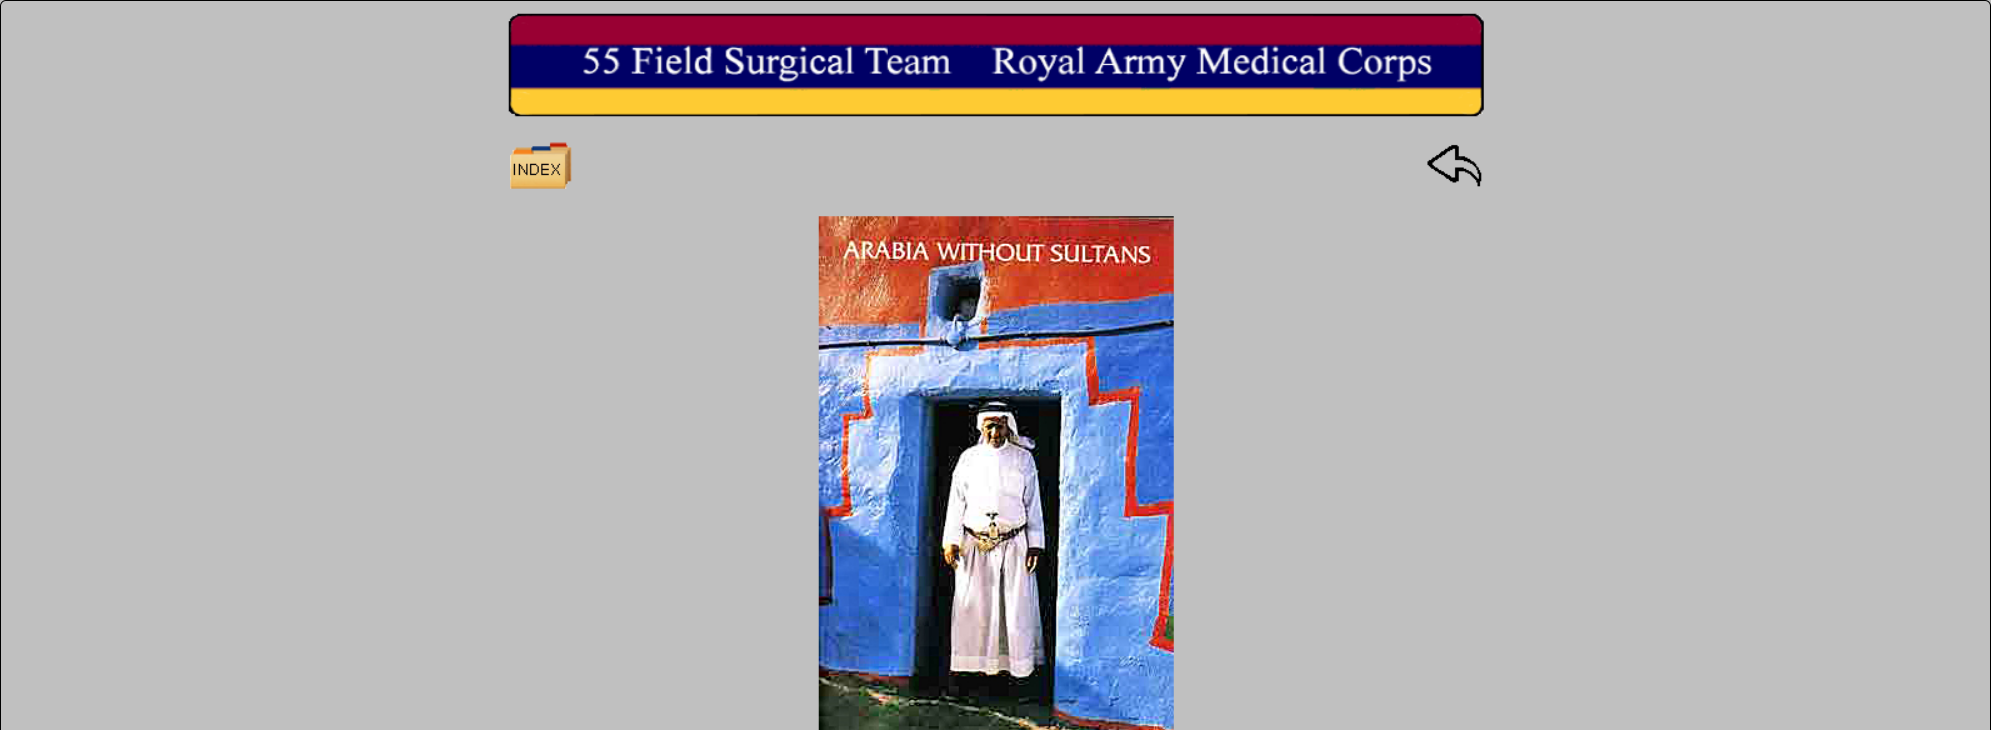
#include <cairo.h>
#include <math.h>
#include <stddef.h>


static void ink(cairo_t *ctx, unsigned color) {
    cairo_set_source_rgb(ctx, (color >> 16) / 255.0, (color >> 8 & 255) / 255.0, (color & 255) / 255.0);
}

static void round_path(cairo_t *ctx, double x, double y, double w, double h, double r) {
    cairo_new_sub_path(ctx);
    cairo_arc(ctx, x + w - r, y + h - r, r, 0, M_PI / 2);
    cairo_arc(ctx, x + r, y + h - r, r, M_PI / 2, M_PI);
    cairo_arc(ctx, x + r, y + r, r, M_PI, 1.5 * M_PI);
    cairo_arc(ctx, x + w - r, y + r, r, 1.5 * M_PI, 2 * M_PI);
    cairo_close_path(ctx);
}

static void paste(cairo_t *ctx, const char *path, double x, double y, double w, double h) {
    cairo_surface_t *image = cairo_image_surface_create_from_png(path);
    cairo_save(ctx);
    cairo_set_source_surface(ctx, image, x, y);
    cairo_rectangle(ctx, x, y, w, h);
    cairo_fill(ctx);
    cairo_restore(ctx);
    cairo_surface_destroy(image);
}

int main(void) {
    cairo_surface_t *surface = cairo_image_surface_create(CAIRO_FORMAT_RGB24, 1991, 730);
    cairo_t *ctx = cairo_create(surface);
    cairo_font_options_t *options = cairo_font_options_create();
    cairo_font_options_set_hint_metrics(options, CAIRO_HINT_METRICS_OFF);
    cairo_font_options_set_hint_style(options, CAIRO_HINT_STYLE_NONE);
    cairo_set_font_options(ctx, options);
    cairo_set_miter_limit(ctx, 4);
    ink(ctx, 0xC0C0C0);
    cairo_paint(ctx);
    round_path(ctx, 0.5, 0.5, 1990, 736, 5.5);
    ink(ctx, 0x000000);
    cairo_set_line_width(ctx, 1);
    cairo_stroke(ctx);
    paste(ctx, "media/1.png", 508, 13, 976, 104);
    paste(ctx, "media/2.png", 510, 142, 62, 47);
    paste(ctx, "media/3.png", 1427, 144, 55, 43);
    paste(ctx, "media/4.png", 818, 216, 356, 514);
    cairo_surface_write_to_png(surface, "image.png");
    cairo_font_options_destroy(options);
    cairo_destroy(ctx);
    cairo_surface_destroy(surface);
    return 0;
}
